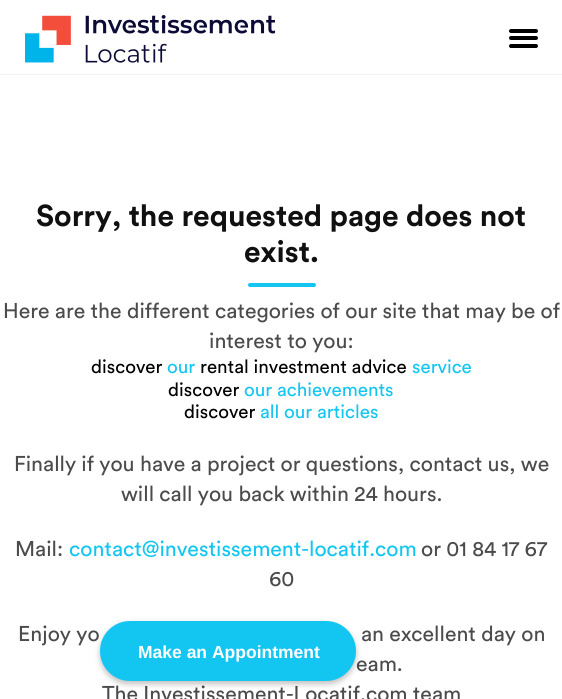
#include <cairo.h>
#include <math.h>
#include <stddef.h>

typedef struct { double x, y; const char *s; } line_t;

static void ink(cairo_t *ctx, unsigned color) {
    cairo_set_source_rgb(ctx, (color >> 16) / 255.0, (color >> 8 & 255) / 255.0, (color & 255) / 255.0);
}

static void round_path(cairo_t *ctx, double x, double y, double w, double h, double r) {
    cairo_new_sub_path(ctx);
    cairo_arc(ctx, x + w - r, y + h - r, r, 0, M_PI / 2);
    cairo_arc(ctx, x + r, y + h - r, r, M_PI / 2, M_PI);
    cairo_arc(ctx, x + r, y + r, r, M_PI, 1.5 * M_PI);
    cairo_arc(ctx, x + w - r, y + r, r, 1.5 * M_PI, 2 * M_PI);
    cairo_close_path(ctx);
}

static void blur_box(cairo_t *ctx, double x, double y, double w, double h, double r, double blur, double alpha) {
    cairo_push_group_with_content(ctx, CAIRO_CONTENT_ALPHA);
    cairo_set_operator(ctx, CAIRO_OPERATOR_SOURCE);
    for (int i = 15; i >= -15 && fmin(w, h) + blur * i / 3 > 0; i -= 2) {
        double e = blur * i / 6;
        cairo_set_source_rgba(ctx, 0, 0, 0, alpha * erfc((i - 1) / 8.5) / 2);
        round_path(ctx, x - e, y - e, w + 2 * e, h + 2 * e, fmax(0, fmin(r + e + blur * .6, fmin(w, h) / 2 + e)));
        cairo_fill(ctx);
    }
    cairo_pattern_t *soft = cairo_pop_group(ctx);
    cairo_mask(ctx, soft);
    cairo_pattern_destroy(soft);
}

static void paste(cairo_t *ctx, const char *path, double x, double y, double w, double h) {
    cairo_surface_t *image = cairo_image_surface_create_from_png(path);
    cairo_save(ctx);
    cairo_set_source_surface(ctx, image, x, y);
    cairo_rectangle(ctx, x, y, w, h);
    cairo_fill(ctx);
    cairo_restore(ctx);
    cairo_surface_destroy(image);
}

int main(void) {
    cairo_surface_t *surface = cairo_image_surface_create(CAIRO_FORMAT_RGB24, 562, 699);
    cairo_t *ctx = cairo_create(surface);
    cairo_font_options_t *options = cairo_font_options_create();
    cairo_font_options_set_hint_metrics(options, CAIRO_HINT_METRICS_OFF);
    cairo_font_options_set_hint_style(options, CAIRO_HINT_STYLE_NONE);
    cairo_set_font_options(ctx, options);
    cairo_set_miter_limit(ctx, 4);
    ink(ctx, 0xFFFFFF);
    cairo_paint(ctx);
    ink(ctx, 0xF0F0F0);
    cairo_rectangle(ctx, 0, 74, 562, 1);
    cairo_fill(ctx);
    paste(ctx, "media/1.png", 25, 15, 250, 48);
    ink(ctx, 0x000000);
    round_path(ctx, 509, 29, 29, 4, 2);
    cairo_fill(ctx);
    round_path(ctx, 509, 36, 29, 4, 2);
    cairo_fill(ctx);
    round_path(ctx, 509, 44, 29, 4, 2);
    cairo_fill(ctx);
    cairo_select_font_face(ctx, "Circular", CAIRO_FONT_SLANT_NORMAL, CAIRO_FONT_WEIGHT_BOLD);
    cairo_set_font_size(ctx, 30);
    ink(ctx, 0x101010);
    cairo_move_to(ctx, 36, 226);
    cairo_show_text(ctx, "Sorry, the requested page does not");
    cairo_move_to(ctx, 244, 262);
    cairo_show_text(ctx, "exist.");
    ink(ctx, 0x13C5F1);
    round_path(ctx, 248, 283, 68, 4, 2);
    cairo_fill(ctx);
    cairo_select_font_face(ctx, "Circular", CAIRO_FONT_SLANT_NORMAL, CAIRO_FONT_WEIGHT_NORMAL);
    cairo_set_font_size(ctx, 21.25);
    ink(ctx, 0x4B4B4B);
    cairo_move_to(ctx, 3, 318);
    cairo_show_text(ctx, "Here are the different categories of our site that may be of");
    cairo_move_to(ctx, 209, 348);
    cairo_show_text(ctx, "interest to you:");
    cairo_set_font_size(ctx, 18.75);
    ink(ctx, 0x000000);
    cairo_move_to(ctx, 91, 373);
    cairo_show_text(ctx, "discover");
    ink(ctx, 0x13C5F1);
    cairo_move_to(ctx, 167, 373);
    cairo_show_text(ctx, "our");
    ink(ctx, 0x000000);
    cairo_move_to(ctx, 200, 373);
    cairo_show_text(ctx, "rental investment advice");
    ink(ctx, 0x13C5F1);
    cairo_move_to(ctx, 412, 373);
    cairo_show_text(ctx, "service");
    ink(ctx, 0x000000);
    cairo_move_to(ctx, 168, 396);
    cairo_show_text(ctx, "discover");
    ink(ctx, 0x13C5F1);
    cairo_move_to(ctx, 244, 396);
    cairo_show_text(ctx, "our achievements");
    ink(ctx, 0x000000);
    cairo_move_to(ctx, 184, 418);
    cairo_show_text(ctx, "discover");
    ink(ctx, 0x13C5F1);
    cairo_move_to(ctx, 260, 418);
    cairo_show_text(ctx, "all our articles");
    cairo_set_font_size(ctx, 21.25);
    ink(ctx, 0x4B4B4B);
    {
        static const line_t items[] = {
            {14, 471, "Finally if you have a project or questions, contact us, we"},
            {121, 501, "will call you back within 24 hours."},
            {15, 556, "Mail:"},
        };
        for (size_t i = 0; i < sizeof items / sizeof *items; i++) {
            cairo_move_to(ctx, items[i].x, items[i].y);
            cairo_show_text(ctx, items[i].s);
        }
    }
    ink(ctx, 0x13C5F1);
    cairo_move_to(ctx, 69, 556);
    cairo_show_text(ctx, "contact@investissement-locatif.com");
    ink(ctx, 0x4B4B4B);
    {
        static const line_t items[] = {
            {421, 556, "or 01 84 17 67"},
            {269, 586, "60"},
            {18, 641, "Enjoy yo"},
            {361, 641, "an excellent day on"},
            {356, 671, "eam."},
            {102, 701, "The Investissement-Locatif.com team"},
        };
        for (size_t i = 0; i < sizeof items / sizeof *items; i++) {
            cairo_move_to(ctx, items[i].x, items[i].y);
            cairo_show_text(ctx, items[i].s);
        }
    }
    ink(ctx, 0x000000);
    blur_box(ctx, 100, 624, 256, 60, 30, 3, 0.25);
    ink(ctx, 0x13C5F1);
    round_path(ctx, 100, 621, 256, 60, 30);
    cairo_fill(ctx);
    cairo_select_font_face(ctx, "Liberation Sans", CAIRO_FONT_SLANT_NORMAL, CAIRO_FONT_WEIGHT_BOLD);
    cairo_set_font_size(ctx, 17.5);
    ink(ctx, 0xFFFFFF);
    cairo_move_to(ctx, 138, 658);
    cairo_show_text(ctx, "Make an Appointment");
    cairo_surface_write_to_png(surface, "image.png");
    cairo_font_options_destroy(options);
    cairo_destroy(ctx);
    cairo_surface_destroy(surface);
    return 0;
}
